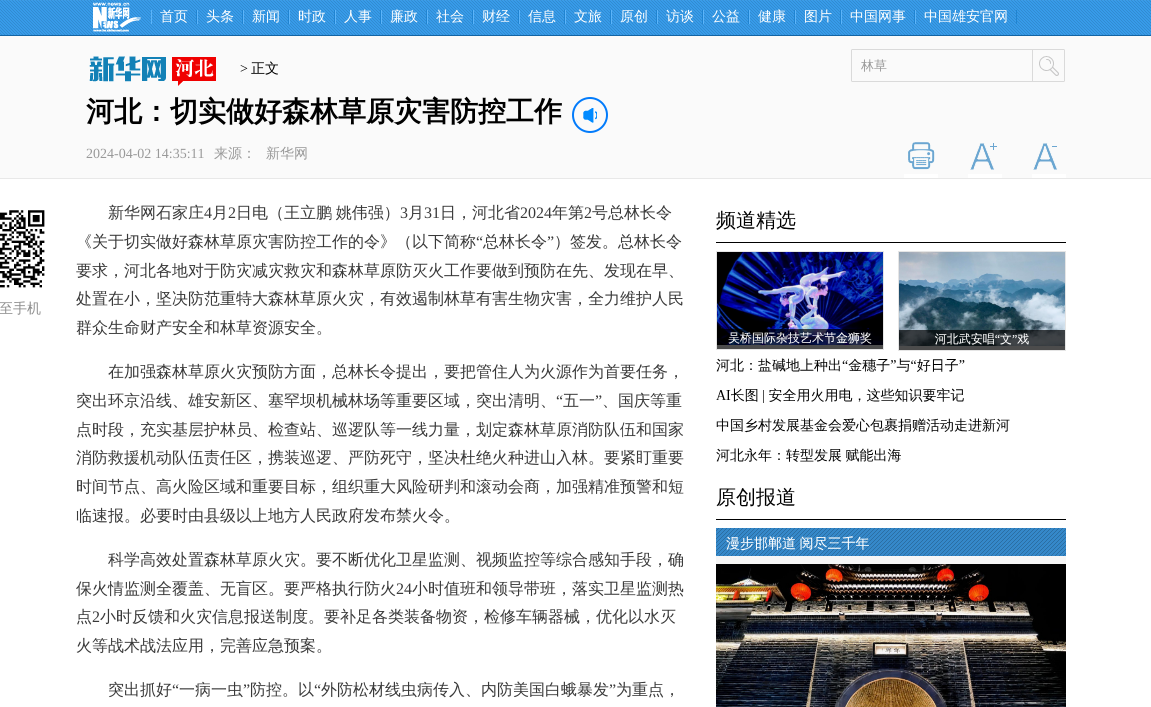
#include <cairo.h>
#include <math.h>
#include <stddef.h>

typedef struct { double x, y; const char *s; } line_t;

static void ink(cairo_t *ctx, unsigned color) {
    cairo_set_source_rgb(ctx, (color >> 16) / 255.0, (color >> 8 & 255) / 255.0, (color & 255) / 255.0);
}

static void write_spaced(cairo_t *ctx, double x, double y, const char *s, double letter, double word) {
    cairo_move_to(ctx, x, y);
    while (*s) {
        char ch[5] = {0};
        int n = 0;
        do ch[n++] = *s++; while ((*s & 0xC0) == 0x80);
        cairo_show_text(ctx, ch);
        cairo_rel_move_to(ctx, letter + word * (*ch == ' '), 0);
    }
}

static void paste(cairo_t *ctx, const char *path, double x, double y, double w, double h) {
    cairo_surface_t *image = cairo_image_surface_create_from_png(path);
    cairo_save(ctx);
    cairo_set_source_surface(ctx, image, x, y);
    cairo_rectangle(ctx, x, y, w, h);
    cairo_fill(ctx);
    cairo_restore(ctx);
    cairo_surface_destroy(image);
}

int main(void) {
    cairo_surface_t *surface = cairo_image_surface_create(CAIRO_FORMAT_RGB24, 1151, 707);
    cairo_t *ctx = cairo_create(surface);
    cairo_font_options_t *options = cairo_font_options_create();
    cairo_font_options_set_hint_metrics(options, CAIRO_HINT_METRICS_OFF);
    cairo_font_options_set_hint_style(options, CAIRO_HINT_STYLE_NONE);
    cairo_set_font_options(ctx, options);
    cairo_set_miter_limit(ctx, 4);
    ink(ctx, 0xFFFFFF);
    cairo_paint(ctx);
    paste(ctx, "media/1.png", 0, 0, 1151, 35);
    ink(ctx, 0x1264A4);
    cairo_rectangle(ctx, 0, 35, 1151, 1);
    cairo_fill(ctx);
    paste(ctx, "media/2.png", 93, 2, 48, 30);
    ink(ctx, 0x1F84D2);
    cairo_rectangle(ctx, 196, 10, 1, 14);
    cairo_fill(ctx);
    ink(ctx, 0x5CB4F9);
    cairo_rectangle(ctx, 151, 10, 1, 14);
    cairo_fill(ctx);
    cairo_select_font_face(ctx, "WenQuanYi Zen Hei Medium", CAIRO_FONT_SLANT_NORMAL, CAIRO_FONT_WEIGHT_NORMAL);
    cairo_set_font_size(ctx, 14);
    ink(ctx, 0xFFFFFF);
    cairo_move_to(ctx, 160, 21);
    cairo_show_text(ctx, "首页");
    ink(ctx, 0x1F84D2);
    cairo_rectangle(ctx, 242, 10, 1, 14);
    cairo_fill(ctx);
    ink(ctx, 0x5CB4F9);
    cairo_rectangle(ctx, 197, 10, 1, 14);
    cairo_fill(ctx);
    ink(ctx, 0xFFFFFF);
    cairo_move_to(ctx, 206, 21);
    cairo_show_text(ctx, "头条");
    ink(ctx, 0x1F84D2);
    cairo_rectangle(ctx, 288, 10, 1, 14);
    cairo_fill(ctx);
    ink(ctx, 0x5CB4F9);
    cairo_rectangle(ctx, 243, 10, 1, 14);
    cairo_fill(ctx);
    ink(ctx, 0xFFFFFF);
    cairo_move_to(ctx, 252, 21);
    cairo_show_text(ctx, "新闻");
    ink(ctx, 0x1F84D2);
    cairo_rectangle(ctx, 334, 10, 1, 14);
    cairo_fill(ctx);
    ink(ctx, 0x5CB4F9);
    cairo_rectangle(ctx, 289, 10, 1, 14);
    cairo_fill(ctx);
    ink(ctx, 0xFFFFFF);
    cairo_move_to(ctx, 298, 21);
    cairo_show_text(ctx, "时政");
    ink(ctx, 0x1F84D2);
    cairo_rectangle(ctx, 380, 10, 1, 14);
    cairo_fill(ctx);
    ink(ctx, 0x5CB4F9);
    cairo_rectangle(ctx, 335, 10, 1, 14);
    cairo_fill(ctx);
    ink(ctx, 0xFFFFFF);
    cairo_move_to(ctx, 344, 21);
    cairo_show_text(ctx, "人事");
    ink(ctx, 0x1F84D2);
    cairo_rectangle(ctx, 426, 10, 1, 14);
    cairo_fill(ctx);
    ink(ctx, 0x5CB4F9);
    cairo_rectangle(ctx, 381, 10, 1, 14);
    cairo_fill(ctx);
    ink(ctx, 0xFFFFFF);
    cairo_move_to(ctx, 390, 21);
    cairo_show_text(ctx, "廉政");
    ink(ctx, 0x1F84D2);
    cairo_rectangle(ctx, 472, 10, 1, 14);
    cairo_fill(ctx);
    ink(ctx, 0x5CB4F9);
    cairo_rectangle(ctx, 427, 10, 1, 14);
    cairo_fill(ctx);
    ink(ctx, 0xFFFFFF);
    cairo_move_to(ctx, 436, 21);
    cairo_show_text(ctx, "社会");
    ink(ctx, 0x1F84D2);
    cairo_rectangle(ctx, 518, 10, 1, 14);
    cairo_fill(ctx);
    ink(ctx, 0x5CB4F9);
    cairo_rectangle(ctx, 473, 10, 1, 14);
    cairo_fill(ctx);
    ink(ctx, 0xFFFFFF);
    cairo_move_to(ctx, 482, 21);
    cairo_show_text(ctx, "财经");
    ink(ctx, 0x1F84D2);
    cairo_rectangle(ctx, 564, 10, 1, 14);
    cairo_fill(ctx);
    ink(ctx, 0x5CB4F9);
    cairo_rectangle(ctx, 519, 10, 1, 14);
    cairo_fill(ctx);
    ink(ctx, 0xFFFFFF);
    cairo_move_to(ctx, 528, 21);
    cairo_show_text(ctx, "信息");
    ink(ctx, 0x1F84D2);
    cairo_rectangle(ctx, 610, 10, 1, 14);
    cairo_fill(ctx);
    ink(ctx, 0x5CB4F9);
    cairo_rectangle(ctx, 565, 10, 1, 14);
    cairo_fill(ctx);
    ink(ctx, 0xFFFFFF);
    cairo_move_to(ctx, 574, 21);
    cairo_show_text(ctx, "文旅");
    ink(ctx, 0x1F84D2);
    cairo_rectangle(ctx, 656, 10, 1, 14);
    cairo_fill(ctx);
    ink(ctx, 0x5CB4F9);
    cairo_rectangle(ctx, 611, 10, 1, 14);
    cairo_fill(ctx);
    ink(ctx, 0xFFFFFF);
    cairo_move_to(ctx, 620, 21);
    cairo_show_text(ctx, "原创");
    ink(ctx, 0x1F84D2);
    cairo_rectangle(ctx, 702, 10, 1, 14);
    cairo_fill(ctx);
    ink(ctx, 0x5CB4F9);
    cairo_rectangle(ctx, 657, 10, 1, 14);
    cairo_fill(ctx);
    ink(ctx, 0xFFFFFF);
    cairo_move_to(ctx, 666, 21);
    cairo_show_text(ctx, "访谈");
    ink(ctx, 0x1F84D2);
    cairo_rectangle(ctx, 748, 10, 1, 14);
    cairo_fill(ctx);
    ink(ctx, 0x5CB4F9);
    cairo_rectangle(ctx, 703, 10, 1, 14);
    cairo_fill(ctx);
    ink(ctx, 0xFFFFFF);
    cairo_move_to(ctx, 712, 21);
    cairo_show_text(ctx, "公益");
    ink(ctx, 0x1F84D2);
    cairo_rectangle(ctx, 794, 10, 1, 14);
    cairo_fill(ctx);
    ink(ctx, 0x5CB4F9);
    cairo_rectangle(ctx, 749, 10, 1, 14);
    cairo_fill(ctx);
    ink(ctx, 0xFFFFFF);
    cairo_move_to(ctx, 758, 21);
    cairo_show_text(ctx, "健康");
    ink(ctx, 0x1F84D2);
    cairo_rectangle(ctx, 840, 10, 1, 14);
    cairo_fill(ctx);
    ink(ctx, 0x5CB4F9);
    cairo_rectangle(ctx, 795, 10, 1, 14);
    cairo_fill(ctx);
    ink(ctx, 0xFFFFFF);
    cairo_move_to(ctx, 804, 21);
    cairo_show_text(ctx, "图片");
    ink(ctx, 0x1F84D2);
    cairo_rectangle(ctx, 914, 10, 1, 14);
    cairo_fill(ctx);
    ink(ctx, 0x5CB4F9);
    cairo_rectangle(ctx, 841, 10, 1, 14);
    cairo_fill(ctx);
    ink(ctx, 0xFFFFFF);
    cairo_move_to(ctx, 850, 21);
    cairo_show_text(ctx, "中国网事");
    ink(ctx, 0x1F84D2);
    cairo_rectangle(ctx, 1016, 10, 1, 14);
    cairo_fill(ctx);
    ink(ctx, 0x5CB4F9);
    cairo_rectangle(ctx, 915, 10, 1, 14);
    cairo_fill(ctx);
    ink(ctx, 0xFFFFFF);
    cairo_move_to(ctx, 924, 21);
    cairo_show_text(ctx, "中国雄安官网");
    ink(ctx, 0xFAFAFA);
    cairo_rectangle(ctx, 0, 36, 1151, 142);
    cairo_fill(ctx);
    ink(ctx, 0xE8E8E8);
    cairo_rectangle(ctx, 0, 178, 1151, 1);
    cairo_fill(ctx);
    paste(ctx, "media/3.png", 89, 56, 127, 30);
    cairo_select_font_face(ctx, "Liberation Serif", CAIRO_FONT_SLANT_NORMAL, CAIRO_FONT_WEIGHT_NORMAL);
    ink(ctx, 0x000000);
    cairo_move_to(ctx, 240, 73);
    cairo_show_text(ctx, ">");
    cairo_select_font_face(ctx, "WenQuanYi Zen Hei Medium", CAIRO_FONT_SLANT_NORMAL, CAIRO_FONT_WEIGHT_NORMAL);
    cairo_move_to(ctx, 251, 73);
    cairo_show_text(ctx, "正文");
    paste(ctx, "media/4.png", 851, 49, 214, 33);
    cairo_set_font_size(ctx, 13);
    ink(ctx, 0x999999);
    cairo_move_to(ctx, 861, 70);
    cairo_show_text(ctx, "林草");
    cairo_select_font_face(ctx, "WenQuanYi Zen Hei", CAIRO_FONT_SLANT_NORMAL, CAIRO_FONT_WEIGHT_BOLD);
    cairo_set_font_size(ctx, 28);
    ink(ctx, 0x000000);
    cairo_move_to(ctx, 86, 121);
    cairo_show_text(ctx, "河北：切实做好森林草原灾害防控工作");
    cairo_new_path(ctx);
    cairo_arc(ctx, 590, 115, 17, 0, 2 * M_PI);
    ink(ctx, 0x027BFB);
    cairo_stroke(ctx);
    paste(ctx, "media/5.png", 583, 108, 14, 15);
    cairo_select_font_face(ctx, "Liberation Serif", CAIRO_FONT_SLANT_NORMAL, CAIRO_FONT_WEIGHT_NORMAL);
    cairo_set_font_size(ctx, 14);
    ink(ctx, 0x999999);
    cairo_move_to(ctx, 86, 158);
    cairo_show_text(ctx, "2024-04-02 14:35:11");
    cairo_select_font_face(ctx, "WenQuanYi Zen Hei Medium", CAIRO_FONT_SLANT_NORMAL, CAIRO_FONT_WEIGHT_NORMAL);
    cairo_move_to(ctx, 214, 158);
    cairo_show_text(ctx, "来源：");
    cairo_move_to(ctx, 266, 158);
    cairo_show_text(ctx, "新华网");
    paste(ctx, "media/6.png", 904, 142, 34, 36);
    paste(ctx, "media/7.png", 968, 143, 34, 35);
    paste(ctx, "media/8.png", 1032, 143, 34, 35);
    paste(ctx, "media/9.png", 0, 210, 45, 78);
    ink(ctx, 0x8D8D8D);
    cairo_move_to(ctx, -1, 313);
    cairo_show_text(ctx, "至手机");
    cairo_set_font_size(ctx, 16);
    ink(ctx, 0x393939);
    cairo_move_to(ctx, 108, 218);
    cairo_show_text(ctx, "新华网石家庄");
    cairo_select_font_face(ctx, "Liberation Serif", CAIRO_FONT_SLANT_NORMAL, CAIRO_FONT_WEIGHT_NORMAL);
    cairo_move_to(ctx, 204, 218);
    cairo_show_text(ctx, "4");
    cairo_select_font_face(ctx, "WenQuanYi Zen Hei Medium", CAIRO_FONT_SLANT_NORMAL, CAIRO_FONT_WEIGHT_NORMAL);
    cairo_move_to(ctx, 212, 218);
    cairo_show_text(ctx, "月");
    cairo_select_font_face(ctx, "Liberation Serif", CAIRO_FONT_SLANT_NORMAL, CAIRO_FONT_WEIGHT_NORMAL);
    cairo_move_to(ctx, 228, 218);
    cairo_show_text(ctx, "2");
    cairo_select_font_face(ctx, "WenQuanYi Zen Hei Medium", CAIRO_FONT_SLANT_NORMAL, CAIRO_FONT_WEIGHT_NORMAL);
    write_spaced(ctx, 236, 218, "日电（王立鹏 姚伟强）", 0, -1);
    cairo_select_font_face(ctx, "Liberation Serif", CAIRO_FONT_SLANT_NORMAL, CAIRO_FONT_WEIGHT_NORMAL);
    cairo_move_to(ctx, 400, 218);
    cairo_show_text(ctx, "3");
    cairo_select_font_face(ctx, "WenQuanYi Zen Hei Medium", CAIRO_FONT_SLANT_NORMAL, CAIRO_FONT_WEIGHT_NORMAL);
    cairo_move_to(ctx, 408, 218);
    cairo_show_text(ctx, "月");
    cairo_select_font_face(ctx, "Liberation Serif", CAIRO_FONT_SLANT_NORMAL, CAIRO_FONT_WEIGHT_NORMAL);
    cairo_move_to(ctx, 424, 218);
    cairo_show_text(ctx, "31");
    cairo_select_font_face(ctx, "WenQuanYi Zen Hei Medium", CAIRO_FONT_SLANT_NORMAL, CAIRO_FONT_WEIGHT_NORMAL);
    cairo_move_to(ctx, 440, 218);
    cairo_show_text(ctx, "日，河北省");
    cairo_select_font_face(ctx, "Liberation Serif", CAIRO_FONT_SLANT_NORMAL, CAIRO_FONT_WEIGHT_NORMAL);
    cairo_move_to(ctx, 520, 218);
    cairo_show_text(ctx, "2024");
    cairo_select_font_face(ctx, "WenQuanYi Zen Hei Medium", CAIRO_FONT_SLANT_NORMAL, CAIRO_FONT_WEIGHT_NORMAL);
    cairo_move_to(ctx, 552, 218);
    cairo_show_text(ctx, "年第");
    cairo_select_font_face(ctx, "Liberation Serif", CAIRO_FONT_SLANT_NORMAL, CAIRO_FONT_WEIGHT_NORMAL);
    cairo_move_to(ctx, 584, 218);
    cairo_show_text(ctx, "2");
    cairo_select_font_face(ctx, "WenQuanYi Zen Hei Medium", CAIRO_FONT_SLANT_NORMAL, CAIRO_FONT_WEIGHT_NORMAL);
    cairo_move_to(ctx, 592, 218);
    cairo_show_text(ctx, "号总林长令");
    cairo_move_to(ctx, 76, 247);
    cairo_show_text(ctx, "《关于切实做好森林草原灾害防控工作的令》（以下简称");
    cairo_select_font_face(ctx, "Liberation Serif", CAIRO_FONT_SLANT_NORMAL, CAIRO_FONT_WEIGHT_NORMAL);
    cairo_move_to(ctx, 476, 247);
    cairo_show_text(ctx, "“");
    cairo_select_font_face(ctx, "WenQuanYi Zen Hei Medium", CAIRO_FONT_SLANT_NORMAL, CAIRO_FONT_WEIGHT_NORMAL);
    cairo_move_to(ctx, 483, 247);
    cairo_show_text(ctx, "总林长令");
    cairo_select_font_face(ctx, "Liberation Serif", CAIRO_FONT_SLANT_NORMAL, CAIRO_FONT_WEIGHT_NORMAL);
    cairo_move_to(ctx, 547, 247);
    cairo_show_text(ctx, "”");
    cairo_select_font_face(ctx, "WenQuanYi Zen Hei Medium", CAIRO_FONT_SLANT_NORMAL, CAIRO_FONT_WEIGHT_NORMAL);
    {
        static const line_t items[] = {
            {554, 247, "）签发。总林长令"},
            {76, 276, "要求，河北各地对于防灾减灾救灾和森林草原防灭火工作要做到预防在先、发现在早、"},
            {76, 304, "处置在小，坚决防范重特大森林草原火灾，有效遏制林草有害生物灾害，全力维护人民"},
            {76, 333, "群众生命财产安全和林草资源安全。"},
            {108, 377, "在加强森林草原火灾预防方面，总林长令提出，要把管住人为火源作为首要任务，"},
            {76, 406, "突出环京沿线、雄安新区、塞罕坝机械林场等重要区域，突出清明、"},
        };
        for (size_t i = 0; i < sizeof items / sizeof *items; i++) {
            cairo_move_to(ctx, items[i].x, items[i].y);
            cairo_show_text(ctx, items[i].s);
        }
    }
    cairo_select_font_face(ctx, "Liberation Serif", CAIRO_FONT_SLANT_NORMAL, CAIRO_FONT_WEIGHT_NORMAL);
    cairo_move_to(ctx, 556, 406);
    cairo_show_text(ctx, "“");
    cairo_select_font_face(ctx, "WenQuanYi Zen Hei Medium", CAIRO_FONT_SLANT_NORMAL, CAIRO_FONT_WEIGHT_NORMAL);
    cairo_move_to(ctx, 563, 406);
    cairo_show_text(ctx, "五一");
    cairo_select_font_face(ctx, "Liberation Serif", CAIRO_FONT_SLANT_NORMAL, CAIRO_FONT_WEIGHT_NORMAL);
    cairo_move_to(ctx, 595, 406);
    cairo_show_text(ctx, "”");
    cairo_select_font_face(ctx, "WenQuanYi Zen Hei Medium", CAIRO_FONT_SLANT_NORMAL, CAIRO_FONT_WEIGHT_NORMAL);
    {
        static const line_t items[] = {
            {602, 406, "、国庆等重"},
            {76, 435, "点时段，充实基层护林员、检查站、巡逻队等一线力量，划定森林草原消防队伍和国家"},
            {76, 463, "消防救援机动队伍责任区，携装巡逻、严防死守，坚决杜绝火种进山入林。要紧盯重要"},
            {76, 492, "时间节点、高火险区域和重要目标，组织重大风险研判和滚动会商，加强精准预警和短"},
            {76, 521, "临速报。必要时由县级以上地方人民政府发布禁火令。"},
            {108, 565, "科学高效处置森林草原火灾。要不断优化卫星监测、视频监控等综合感知手段，确"},
            {76, 594, "保火情监测全覆盖、无盲区。要严格执行防火"},
        };
        for (size_t i = 0; i < sizeof items / sizeof *items; i++) {
            cairo_move_to(ctx, items[i].x, items[i].y);
            cairo_show_text(ctx, items[i].s);
        }
    }
    cairo_select_font_face(ctx, "Liberation Serif", CAIRO_FONT_SLANT_NORMAL, CAIRO_FONT_WEIGHT_NORMAL);
    cairo_move_to(ctx, 396, 594);
    cairo_show_text(ctx, "24");
    cairo_select_font_face(ctx, "WenQuanYi Zen Hei Medium", CAIRO_FONT_SLANT_NORMAL, CAIRO_FONT_WEIGHT_NORMAL);
    cairo_move_to(ctx, 412, 594);
    cairo_show_text(ctx, "小时值班和领导带班，落实卫星监测热");
    cairo_move_to(ctx, 76, 622);
    cairo_show_text(ctx, "点");
    cairo_select_font_face(ctx, "Liberation Serif", CAIRO_FONT_SLANT_NORMAL, CAIRO_FONT_WEIGHT_NORMAL);
    cairo_move_to(ctx, 92, 622);
    cairo_show_text(ctx, "2");
    cairo_select_font_face(ctx, "WenQuanYi Zen Hei Medium", CAIRO_FONT_SLANT_NORMAL, CAIRO_FONT_WEIGHT_NORMAL);
    {
        static const line_t items[] = {
            {100, 622, "小时反馈和火灾信息报送制度。要补足各类装备物资，检修车辆器械，优化以水灭"},
            {76, 651, "火等战术战法应用，完善应急预案。"},
            {108, 695, "突出抓好"},
        };
        for (size_t i = 0; i < sizeof items / sizeof *items; i++) {
            cairo_move_to(ctx, items[i].x, items[i].y);
            cairo_show_text(ctx, items[i].s);
        }
    }
    cairo_select_font_face(ctx, "Liberation Serif", CAIRO_FONT_SLANT_NORMAL, CAIRO_FONT_WEIGHT_NORMAL);
    cairo_move_to(ctx, 172, 695);
    cairo_show_text(ctx, "“");
    cairo_select_font_face(ctx, "WenQuanYi Zen Hei Medium", CAIRO_FONT_SLANT_NORMAL, CAIRO_FONT_WEIGHT_NORMAL);
    cairo_move_to(ctx, 179, 695);
    cairo_show_text(ctx, "一病一虫");
    cairo_select_font_face(ctx, "Liberation Serif", CAIRO_FONT_SLANT_NORMAL, CAIRO_FONT_WEIGHT_NORMAL);
    cairo_move_to(ctx, 243, 695);
    cairo_show_text(ctx, "”");
    cairo_select_font_face(ctx, "WenQuanYi Zen Hei Medium", CAIRO_FONT_SLANT_NORMAL, CAIRO_FONT_WEIGHT_NORMAL);
    cairo_move_to(ctx, 250, 695);
    cairo_show_text(ctx, "防控。以");
    cairo_select_font_face(ctx, "Liberation Serif", CAIRO_FONT_SLANT_NORMAL, CAIRO_FONT_WEIGHT_NORMAL);
    cairo_move_to(ctx, 314, 695);
    cairo_show_text(ctx, "“");
    cairo_select_font_face(ctx, "WenQuanYi Zen Hei Medium", CAIRO_FONT_SLANT_NORMAL, CAIRO_FONT_WEIGHT_NORMAL);
    cairo_move_to(ctx, 321, 695);
    cairo_show_text(ctx, "外防松材线虫病传入、内防美国白蛾暴发");
    cairo_select_font_face(ctx, "Liberation Serif", CAIRO_FONT_SLANT_NORMAL, CAIRO_FONT_WEIGHT_NORMAL);
    cairo_move_to(ctx, 609, 695);
    cairo_show_text(ctx, "”");
    cairo_select_font_face(ctx, "WenQuanYi Zen Hei Medium", CAIRO_FONT_SLANT_NORMAL, CAIRO_FONT_WEIGHT_NORMAL);
    cairo_move_to(ctx, 616, 695);
    cairo_show_text(ctx, "为重点，");
    paste(ctx, "media/10.png", 716, 210, 350, 497);
    cairo_surface_write_to_png(surface, "image.png");
    cairo_font_options_destroy(options);
    cairo_destroy(ctx);
    cairo_surface_destroy(surface);
    return 0;
}
